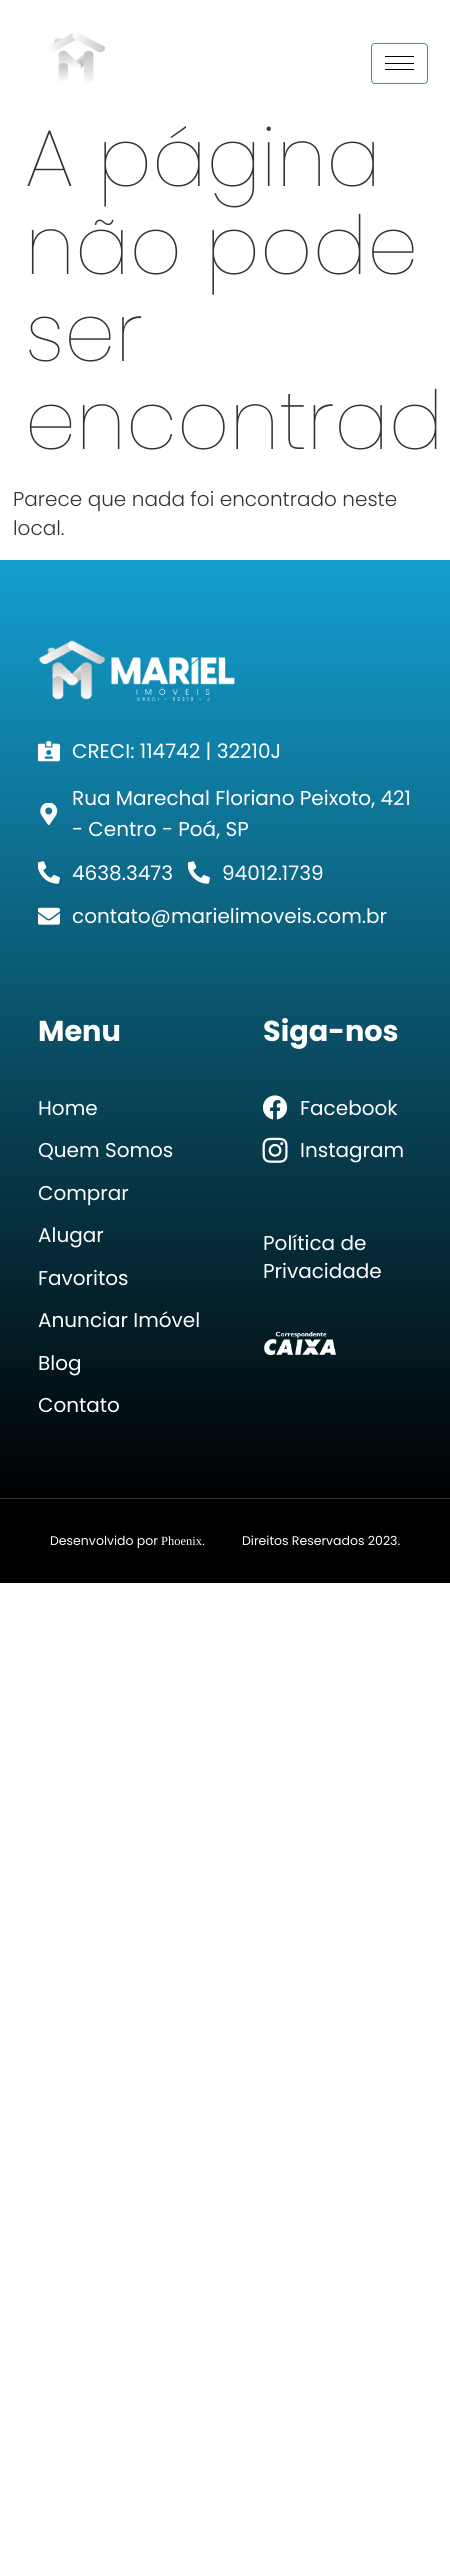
#include <cairo.h>
#include <math.h>
#include <stddef.h>

typedef struct { double x, y; const char *s; } line_t;
typedef struct { double x, y, w, h; unsigned color; } box_t;

static void ink(cairo_t *ctx, unsigned color) {
    cairo_set_source_rgb(ctx, (color >> 16) / 255.0, (color >> 8 & 255) / 255.0, (color & 255) / 255.0);
}

static void round_path(cairo_t *ctx, double x, double y, double w, double h, double r) {
    cairo_new_sub_path(ctx);
    cairo_arc(ctx, x + w - r, y + h - r, r, 0, M_PI / 2);
    cairo_arc(ctx, x + r, y + h - r, r, M_PI / 2, M_PI);
    cairo_arc(ctx, x + r, y + r, r, M_PI, 1.5 * M_PI);
    cairo_arc(ctx, x + w - r, y + r, r, 1.5 * M_PI, 2 * M_PI);
    cairo_close_path(ctx);
}

static void paste(cairo_t *ctx, const char *path, double x, double y, double w, double h) {
    cairo_surface_t *image = cairo_image_surface_create_from_png(path);
    cairo_save(ctx);
    cairo_set_source_surface(ctx, image, x, y);
    cairo_rectangle(ctx, x, y, w, h);
    cairo_fill(ctx);
    cairo_restore(ctx);
    cairo_surface_destroy(image);
}

int main(void) {
    cairo_surface_t *surface = cairo_image_surface_create(CAIRO_FORMAT_RGB24, 450, 2562);
    cairo_t *ctx = cairo_create(surface);
    cairo_font_options_t *options = cairo_font_options_create();
    cairo_font_options_set_hint_metrics(options, CAIRO_HINT_METRICS_OFF);
    cairo_font_options_set_hint_style(options, CAIRO_HINT_STYLE_NONE);
    cairo_set_font_options(ctx, options);
    cairo_set_miter_limit(ctx, 4);
    cairo_pattern_t *gradient;
    ink(ctx, 0xFFFFFF);
    cairo_paint(ctx);
    paste(ctx, "media/1.png", 48, 32, 58, 50);
    round_path(ctx, 371.5, 43.5, 56, 40, 3.5);
    ink(ctx, 0x149FCF);
    cairo_set_line_width(ctx, 1);
    cairo_stroke(ctx);
    {
        static const box_t items[] = {
            {385, 56, 29, 1, 0x000000},
            {385, 63, 29, 1, 0x000000},
            {385, 69, 29, 1, 0x000000},
        };
        for (size_t i = 0; i < sizeof items / sizeof *items; i++) {
            ink(ctx, items[i].color);
            cairo_rectangle(ctx, items[i].x, items[i].y, items[i].w, items[i].h);
            cairo_fill(ctx);
        }
    }
    cairo_select_font_face(ctx, "Poppins Thin", CAIRO_FONT_SLANT_NORMAL, CAIRO_FONT_WEIGHT_NORMAL);
    cairo_set_font_size(ctx, 81.25);
    ink(ctx, 0x333333);
    {
        static const line_t items[] = {
            {25, 186, "A página"},
            {25, 274, "não pode"},
            {25, 361, "ser"},
            {25, 449, "encontrad"},
        };
        for (size_t i = 0; i < sizeof items / sizeof *items; i++) {
            cairo_move_to(ctx, items[i].x, items[i].y);
            cairo_show_text(ctx, items[i].s);
        }
    }
    cairo_select_font_face(ctx, "Poppins Light", CAIRO_FONT_SLANT_NORMAL, CAIRO_FONT_WEIGHT_NORMAL);
    cairo_set_font_size(ctx, 20);
    cairo_move_to(ctx, 13, 506);
    cairo_show_text(ctx, "Parece que nada foi encontrado neste");
    cairo_move_to(ctx, 13, 535);
    cairo_show_text(ctx, "local.");
    gradient = cairo_pattern_create_linear(225, 560, 225, 1498);
    cairo_pattern_add_color_stop_rgba(gradient, 0, 0.078, 0.624, 0.812, 1);
    cairo_pattern_add_color_stop_rgba(gradient, 1, 0, 0, 0, 1);
    cairo_set_source(ctx, gradient);
    cairo_pattern_destroy(gradient);
    cairo_rectangle(ctx, 0, 560, 450, 938);
    cairo_fill(ctx);
    paste(ctx, "media/2.png", 39, 640, 196, 61);
    paste(ctx, "media/3.png", 38, 741, 22, 21);
    cairo_select_font_face(ctx, "Poppins", CAIRO_FONT_SLANT_NORMAL, CAIRO_FONT_WEIGHT_NORMAL);
    ink(ctx, 0xFFFFFF);
    cairo_move_to(ctx, 72, 758);
    cairo_show_text(ctx, "CRECI: 114742 | 32210J");
    paste(ctx, "media/4.png", 40, 803, 18, 22);
    cairo_move_to(ctx, 72, 805);
    cairo_show_text(ctx, "Rua Marechal Floriano Peixoto, 421");
    cairo_move_to(ctx, 72, 836);
    cairo_show_text(ctx, "- Centro - Poá, SP");
    paste(ctx, "media/5.png", 38, 861, 22, 23);
    cairo_move_to(ctx, 72, 880);
    cairo_show_text(ctx, "4638.3473");
    paste(ctx, "media/5.png", 188, 861, 22, 23);
    cairo_move_to(ctx, 222, 880);
    cairo_show_text(ctx, "94012.1739");
    paste(ctx, "media/6.png", 38, 907, 22, 18);
    cairo_move_to(ctx, 72, 923);
    cairo_show_text(ctx, "contato@marielimoveis.com.br");
    cairo_select_font_face(ctx, "Poppins", CAIRO_FONT_SLANT_NORMAL, CAIRO_FONT_WEIGHT_BOLD);
    cairo_set_font_size(ctx, 28.75);
    cairo_move_to(ctx, 38, 1041);
    cairo_show_text(ctx, "Menu");
    cairo_select_font_face(ctx, "Poppins", CAIRO_FONT_SLANT_NORMAL, CAIRO_FONT_WEIGHT_NORMAL);
    cairo_set_font_size(ctx, 20);
    {
        static const line_t items[] = {
            {38, 1115, "Home"},
            {38, 1157, "Quem Somos"},
            {38, 1200, "Comprar"},
            {38, 1242, "Alugar"},
            {38, 1285, "Favoritos"},
            {38, 1327, "Anunciar Imóvel"},
            {38, 1370, "Blog"},
            {38, 1412, "Contato"},
        };
        for (size_t i = 0; i < sizeof items / sizeof *items; i++) {
            cairo_move_to(ctx, items[i].x, items[i].y);
            cairo_show_text(ctx, items[i].s);
        }
    }
    cairo_select_font_face(ctx, "Poppins", CAIRO_FONT_SLANT_NORMAL, CAIRO_FONT_WEIGHT_BOLD);
    cairo_set_font_size(ctx, 28.75);
    cairo_move_to(ctx, 263, 1041);
    cairo_show_text(ctx, "Siga-nos");
    paste(ctx, "media/7.png", 263, 1095, 25, 25);
    cairo_select_font_face(ctx, "Poppins", CAIRO_FONT_SLANT_NORMAL, CAIRO_FONT_WEIGHT_NORMAL);
    cairo_set_font_size(ctx, 20);
    cairo_move_to(ctx, 300, 1115);
    cairo_show_text(ctx, "Facebook");
    paste(ctx, "media/8.png", 262, 1137, 26, 26);
    {
        static const line_t items[] = {
            {300, 1157, "Instagram"},
            {263, 1250, "Política de"},
            {263, 1278, "Privacidade"},
        };
        for (size_t i = 0; i < sizeof items / sizeof *items; i++) {
            cairo_move_to(ctx, items[i].x, items[i].y);
            cairo_show_text(ctx, items[i].s);
        }
    }
    paste(ctx, "media/9.png", 264, 1331, 72, 25);
    ink(ctx, 0x000000);
    cairo_rectangle(ctx, 0, 1499, 450, 84);
    cairo_fill(ctx);
    ink(ctx, 0x333333);
    cairo_rectangle(ctx, 0, 1498, 450, 1);
    cairo_fill(ctx);
    cairo_set_font_size(ctx, 12.5);
    ink(ctx, 0xFFFFFF);
    cairo_move_to(ctx, 50, 1545);
    cairo_show_text(ctx, "Desenvolvido por");
    cairo_select_font_face(ctx, "Liberation Serif", CAIRO_FONT_SLANT_NORMAL, CAIRO_FONT_WEIGHT_NORMAL);
    cairo_move_to(ctx, 161, 1545);
    cairo_show_text(ctx, "Phoenix.");
    cairo_select_font_face(ctx, "Poppins", CAIRO_FONT_SLANT_NORMAL, CAIRO_FONT_WEIGHT_NORMAL);
    cairo_move_to(ctx, 242, 1545);
    cairo_show_text(ctx, "Direitos Reservados 2023.");
    cairo_surface_write_to_png(surface, "image.png");
    cairo_font_options_destroy(options);
    cairo_destroy(ctx);
    cairo_surface_destroy(surface);
    return 0;
}
